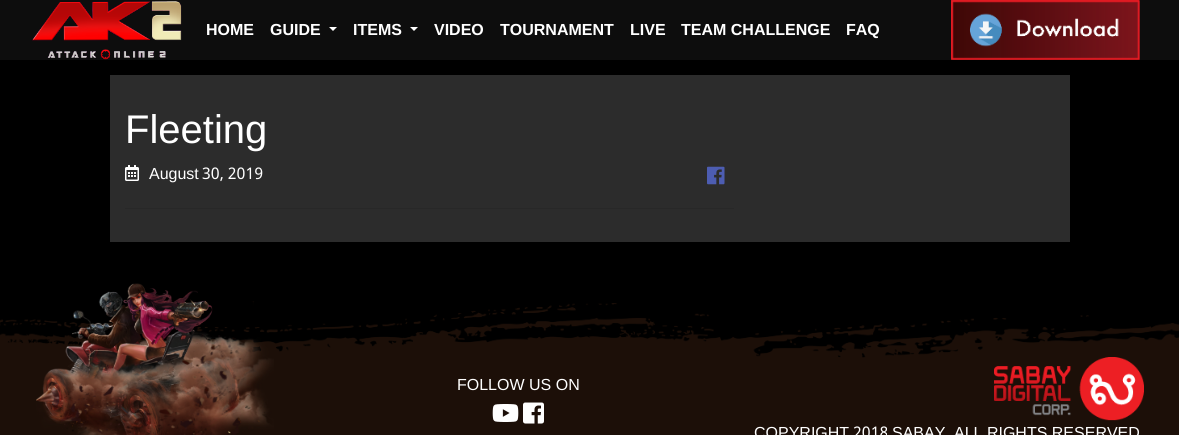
#include <cairo.h>
#include <math.h>
#include <stddef.h>

typedef struct { double x, y; const char *s; } line_t;

static void ink(cairo_t *ctx, unsigned color) {
    cairo_set_source_rgb(ctx, (color >> 16) / 255.0, (color >> 8 & 255) / 255.0, (color & 255) / 255.0);
}

static void paste(cairo_t *ctx, const char *path, double x, double y, double w, double h) {
    cairo_surface_t *image = cairo_image_surface_create_from_png(path);
    cairo_save(ctx);
    cairo_set_source_surface(ctx, image, x, y);
    cairo_rectangle(ctx, x, y, w, h);
    cairo_fill(ctx);
    cairo_restore(ctx);
    cairo_surface_destroy(image);
}

int main(void) {
    cairo_surface_t *surface = cairo_image_surface_create(CAIRO_FORMAT_RGB24, 1179, 435);
    cairo_t *ctx = cairo_create(surface);
    cairo_font_options_t *options = cairo_font_options_create();
    cairo_font_options_set_hint_metrics(options, CAIRO_HINT_METRICS_OFF);
    cairo_font_options_set_hint_style(options, CAIRO_HINT_STYLE_NONE);
    cairo_set_font_options(ctx, options);
    cairo_set_miter_limit(ctx, 4);
    ink(ctx, 0x000000);
    cairo_paint(ctx);
    ink(ctx, 0x0D0D0D);
    cairo_rectangle(ctx, 0, 0, 1179, 60);
    cairo_fill(ctx);
    paste(ctx, "media/1.png", 32, 1, 150, 59);
    cairo_select_font_face(ctx, "Liberation Sans", CAIRO_FONT_SLANT_NORMAL, CAIRO_FONT_WEIGHT_BOLD);
    cairo_set_font_size(ctx, 16);
    ink(ctx, 0xFFFFFF);
    cairo_move_to(ctx, 206, 35);
    cairo_show_text(ctx, "HOME");
    cairo_move_to(ctx, 270, 35);
    cairo_show_text(ctx, "GUIDE");
    cairo_new_path(ctx);
    cairo_move_to(ctx, 329, 27);
    cairo_line_to(ctx, 337, 27);
    cairo_line_to(ctx, 333, 31);
    cairo_close_path(ctx);
    cairo_fill(ctx);
    cairo_move_to(ctx, 353, 35);
    cairo_show_text(ctx, "ITEMS");
    cairo_new_path(ctx);
    cairo_move_to(ctx, 410, 27);
    cairo_line_to(ctx, 418, 27);
    cairo_line_to(ctx, 414, 31);
    cairo_close_path(ctx);
    cairo_fill(ctx);
    {
        static const line_t items[] = {
            {434, 35, "VIDEO"},
            {500, 35, "TOURNAMENT"},
            {630, 35, "LIVE"},
            {681, 35, "TEAM CHALLENGE"},
            {846, 35, "FAQ"},
        };
        for (size_t i = 0; i < sizeof items / sizeof *items; i++) {
            cairo_move_to(ctx, items[i].x, items[i].y);
            cairo_show_text(ctx, items[i].s);
        }
    }
    paste(ctx, "media/2.png", 951, 0, 189, 60);
    ink(ctx, 0x2C2C2C);
    cairo_rectangle(ctx, 110, 75, 960, 167);
    cairo_fill(ctx);
    cairo_select_font_face(ctx, "Liberation Sans", CAIRO_FONT_SLANT_NORMAL, CAIRO_FONT_WEIGHT_NORMAL);
    cairo_set_font_size(ctx, 40);
    ink(ctx, 0xFFFFFF);
    cairo_move_to(ctx, 125, 143);
    cairo_show_text(ctx, "Fleeting");
    paste(ctx, "media/3.png", 125, 165, 14, 16);
    cairo_set_font_size(ctx, 16);
    cairo_move_to(ctx, 149, 179);
    cairo_show_text(ctx, "August");
    cairo_select_font_face(ctx, "Battambang", CAIRO_FONT_SLANT_NORMAL, CAIRO_FONT_WEIGHT_NORMAL);
    cairo_move_to(ctx, 202, 179);
    cairo_show_text(ctx, "30, 2019");
    paste(ctx, "media/4.png", 707, 166, 18, 19);
    ink(ctx, 0x282828);
    cairo_rectangle(ctx, 125, 208, 609, 1);
    cairo_fill(ctx);
    paste(ctx, "media/5.png", 0, 303, 1179, 132);
    paste(ctx, "media/6.png", 36, 283, 238, 152);
    cairo_select_font_face(ctx, "Liberation Sans", CAIRO_FONT_SLANT_NORMAL, CAIRO_FONT_WEIGHT_NORMAL);
    ink(ctx, 0xFFFFFF);
    cairo_move_to(ctx, 457, 390);
    cairo_show_text(ctx, "FOLLOW US ON");
    paste(ctx, "media/7.png", 492, 404, 27, 18);
    paste(ctx, "media/8.png", 523, 402, 21, 22);
    paste(ctx, "media/9.png", 994, 357, 150, 64);
    cairo_move_to(ctx, 754, 438);
    cairo_show_text(ctx, "COPYRIGHT");
    cairo_select_font_face(ctx, "Battambang", CAIRO_FONT_SLANT_NORMAL, CAIRO_FONT_WEIGHT_NORMAL);
    cairo_move_to(ctx, 853, 438);
    cairo_show_text(ctx, "2018");
    cairo_select_font_face(ctx, "Liberation Sans", CAIRO_FONT_SLANT_NORMAL, CAIRO_FONT_WEIGHT_NORMAL);
    cairo_move_to(ctx, 892, 438);
    cairo_show_text(ctx, "SABAY");
    cairo_move_to(ctx, 954, 438);
    cairo_show_text(ctx, "ALL RIGHTS RESERVED");
    cairo_surface_write_to_png(surface, "image.png");
    cairo_font_options_destroy(options);
    cairo_destroy(ctx);
    cairo_surface_destroy(surface);
    return 0;
}
